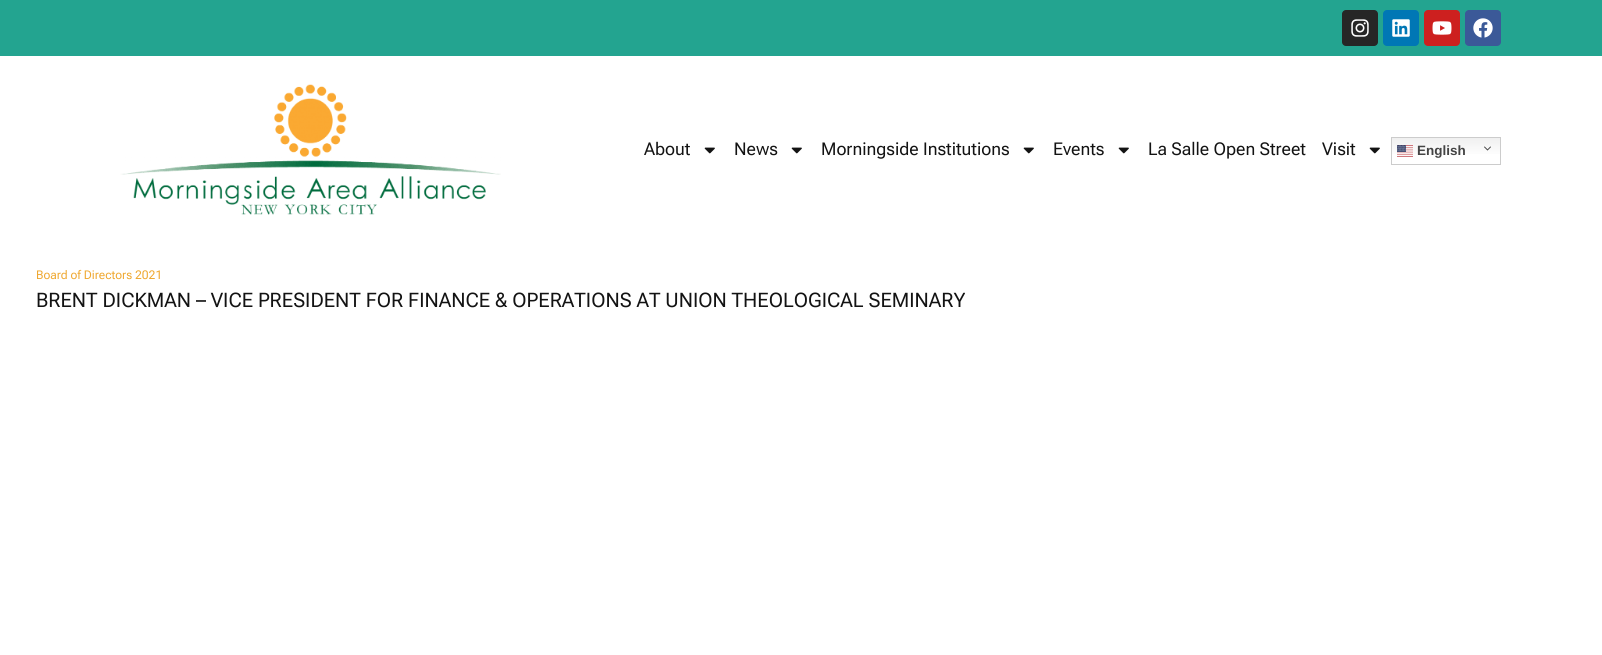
#include <cairo.h>
#include <math.h>
#include <stddef.h>


static void ink(cairo_t *ctx, unsigned color) {
    cairo_set_source_rgb(ctx, (color >> 16) / 255.0, (color >> 8 & 255) / 255.0, (color & 255) / 255.0);
}

static void round_path(cairo_t *ctx, double x, double y, double w, double h, double r) {
    cairo_new_sub_path(ctx);
    cairo_arc(ctx, x + w - r, y + h - r, r, 0, M_PI / 2);
    cairo_arc(ctx, x + r, y + h - r, r, M_PI / 2, M_PI);
    cairo_arc(ctx, x + r, y + r, r, M_PI, 1.5 * M_PI);
    cairo_arc(ctx, x + w - r, y + r, r, 1.5 * M_PI, 2 * M_PI);
    cairo_close_path(ctx);
}

static void paste(cairo_t *ctx, const char *path, double x, double y, double w, double h) {
    cairo_surface_t *image = cairo_image_surface_create_from_png(path);
    cairo_save(ctx);
    cairo_set_source_surface(ctx, image, x, y);
    cairo_rectangle(ctx, x, y, w, h);
    cairo_fill(ctx);
    cairo_restore(ctx);
    cairo_surface_destroy(image);
}

int main(void) {
    cairo_surface_t *surface = cairo_image_surface_create(CAIRO_FORMAT_RGB24, 1602, 655);
    cairo_t *ctx = cairo_create(surface);
    cairo_font_options_t *options = cairo_font_options_create();
    cairo_font_options_set_hint_metrics(options, CAIRO_HINT_METRICS_OFF);
    cairo_font_options_set_hint_style(options, CAIRO_HINT_STYLE_NONE);
    cairo_set_font_options(ctx, options);
    cairo_set_miter_limit(ctx, 4);
    cairo_pattern_t *gradient;
    ink(ctx, 0xFFFFFF);
    cairo_paint(ctx);
    ink(ctx, 0x23A490);
    cairo_rectangle(ctx, 0, 0, 1602, 56);
    cairo_fill(ctx);
    ink(ctx, 0x262626);
    round_path(ctx, 1342, 10, 36, 36, 4);
    cairo_fill(ctx);
    paste(ctx, "media/1.png", 1351, 19, 18, 18);
    ink(ctx, 0x0077B5);
    round_path(ctx, 1383, 10, 36, 36, 4);
    cairo_fill(ctx);
    paste(ctx, "media/2.png", 1392, 19, 18, 18);
    ink(ctx, 0xCD201F);
    round_path(ctx, 1424, 10, 36, 36, 4);
    cairo_fill(ctx);
    paste(ctx, "media/3.png", 1432, 21, 20, 14);
    ink(ctx, 0x3B5998);
    round_path(ctx, 1465, 10, 36, 36, 4);
    cairo_fill(ctx);
    paste(ctx, "media/4.png", 1473, 18, 20, 20);
    paste(ctx, "media/5.png", 120, 84, 381, 131);
    cairo_select_font_face(ctx, "Roboto Flex", CAIRO_FONT_SLANT_NORMAL, CAIRO_FONT_WEIGHT_NORMAL);
    cairo_set_font_size(ctx, 17.6);
    ink(ctx, 0x131313);
    cairo_move_to(ctx, 644, 155);
    cairo_show_text(ctx, "About");
    paste(ctx, "media/6.png", 704, 147, 11, 7);
    cairo_move_to(ctx, 734, 155);
    cairo_show_text(ctx, "News");
    paste(ctx, "media/6.png", 791, 147, 11, 7);
    cairo_move_to(ctx, 821, 155);
    cairo_show_text(ctx, "Morningside Institutions");
    paste(ctx, "media/6.png", 1023, 147, 11, 7);
    cairo_move_to(ctx, 1053, 155);
    cairo_show_text(ctx, "Events");
    paste(ctx, "media/6.png", 1118, 147, 11, 7);
    cairo_move_to(ctx, 1148, 155);
    cairo_show_text(ctx, "La Salle Open Street");
    cairo_move_to(ctx, 1322, 155);
    cairo_show_text(ctx, "Visit");
    paste(ctx, "media/6.png", 1369, 147, 11, 7);
    gradient = cairo_pattern_create_linear(1446, 137, 1446, 165);
    cairo_pattern_add_color_stop_rgba(gradient, 0, 0.937, 0.937, 0.937, 1);
    cairo_pattern_add_color_stop_rgba(gradient, 0.7, 1, 1, 1, 1);
    cairo_set_source(ctx, gradient);
    cairo_pattern_destroy(gradient);
    cairo_rectangle(ctx, 1392, 138, 108, 16);
    cairo_fill(ctx);
    cairo_rectangle(ctx, 1391.5, 137.5, 109, 27);
    ink(ctx, 0xCCCCCC);
    cairo_set_line_width(ctx, 1);
    cairo_stroke(ctx);
    paste(ctx, "media/7.png", 1397, 145, 16, 12);
    cairo_select_font_face(ctx, "Liberation Sans", CAIRO_FONT_SLANT_NORMAL, CAIRO_FONT_WEIGHT_BOLD);
    cairo_set_font_size(ctx, 13.5);
    ink(ctx, 0x444444);
    cairo_move_to(ctx, 1417, 155);
    cairo_show_text(ctx, "English");
    paste(ctx, "media/8.png", 1484, 146, 7, 5);
    cairo_select_font_face(ctx, "Roboto Flex", CAIRO_FONT_SLANT_NORMAL, CAIRO_FONT_WEIGHT_NORMAL);
    cairo_set_font_size(ctx, 12);
    ink(ctx, 0xEFA830);
    cairo_move_to(ctx, 36, 279);
    cairo_show_text(ctx, "Board of Directors 2021");
    cairo_set_font_size(ctx, 20);
    ink(ctx, 0x131313);
    cairo_move_to(ctx, 36, 307);
    cairo_show_text(ctx, "BRENT DICKMAN – VICE PRESIDENT FOR FINANCE & OPERATIONS AT UNION THEOLOGICAL SEMINARY");
    cairo_surface_write_to_png(surface, "image.png");
    cairo_font_options_destroy(options);
    cairo_destroy(ctx);
    cairo_surface_destroy(surface);
    return 0;
}
